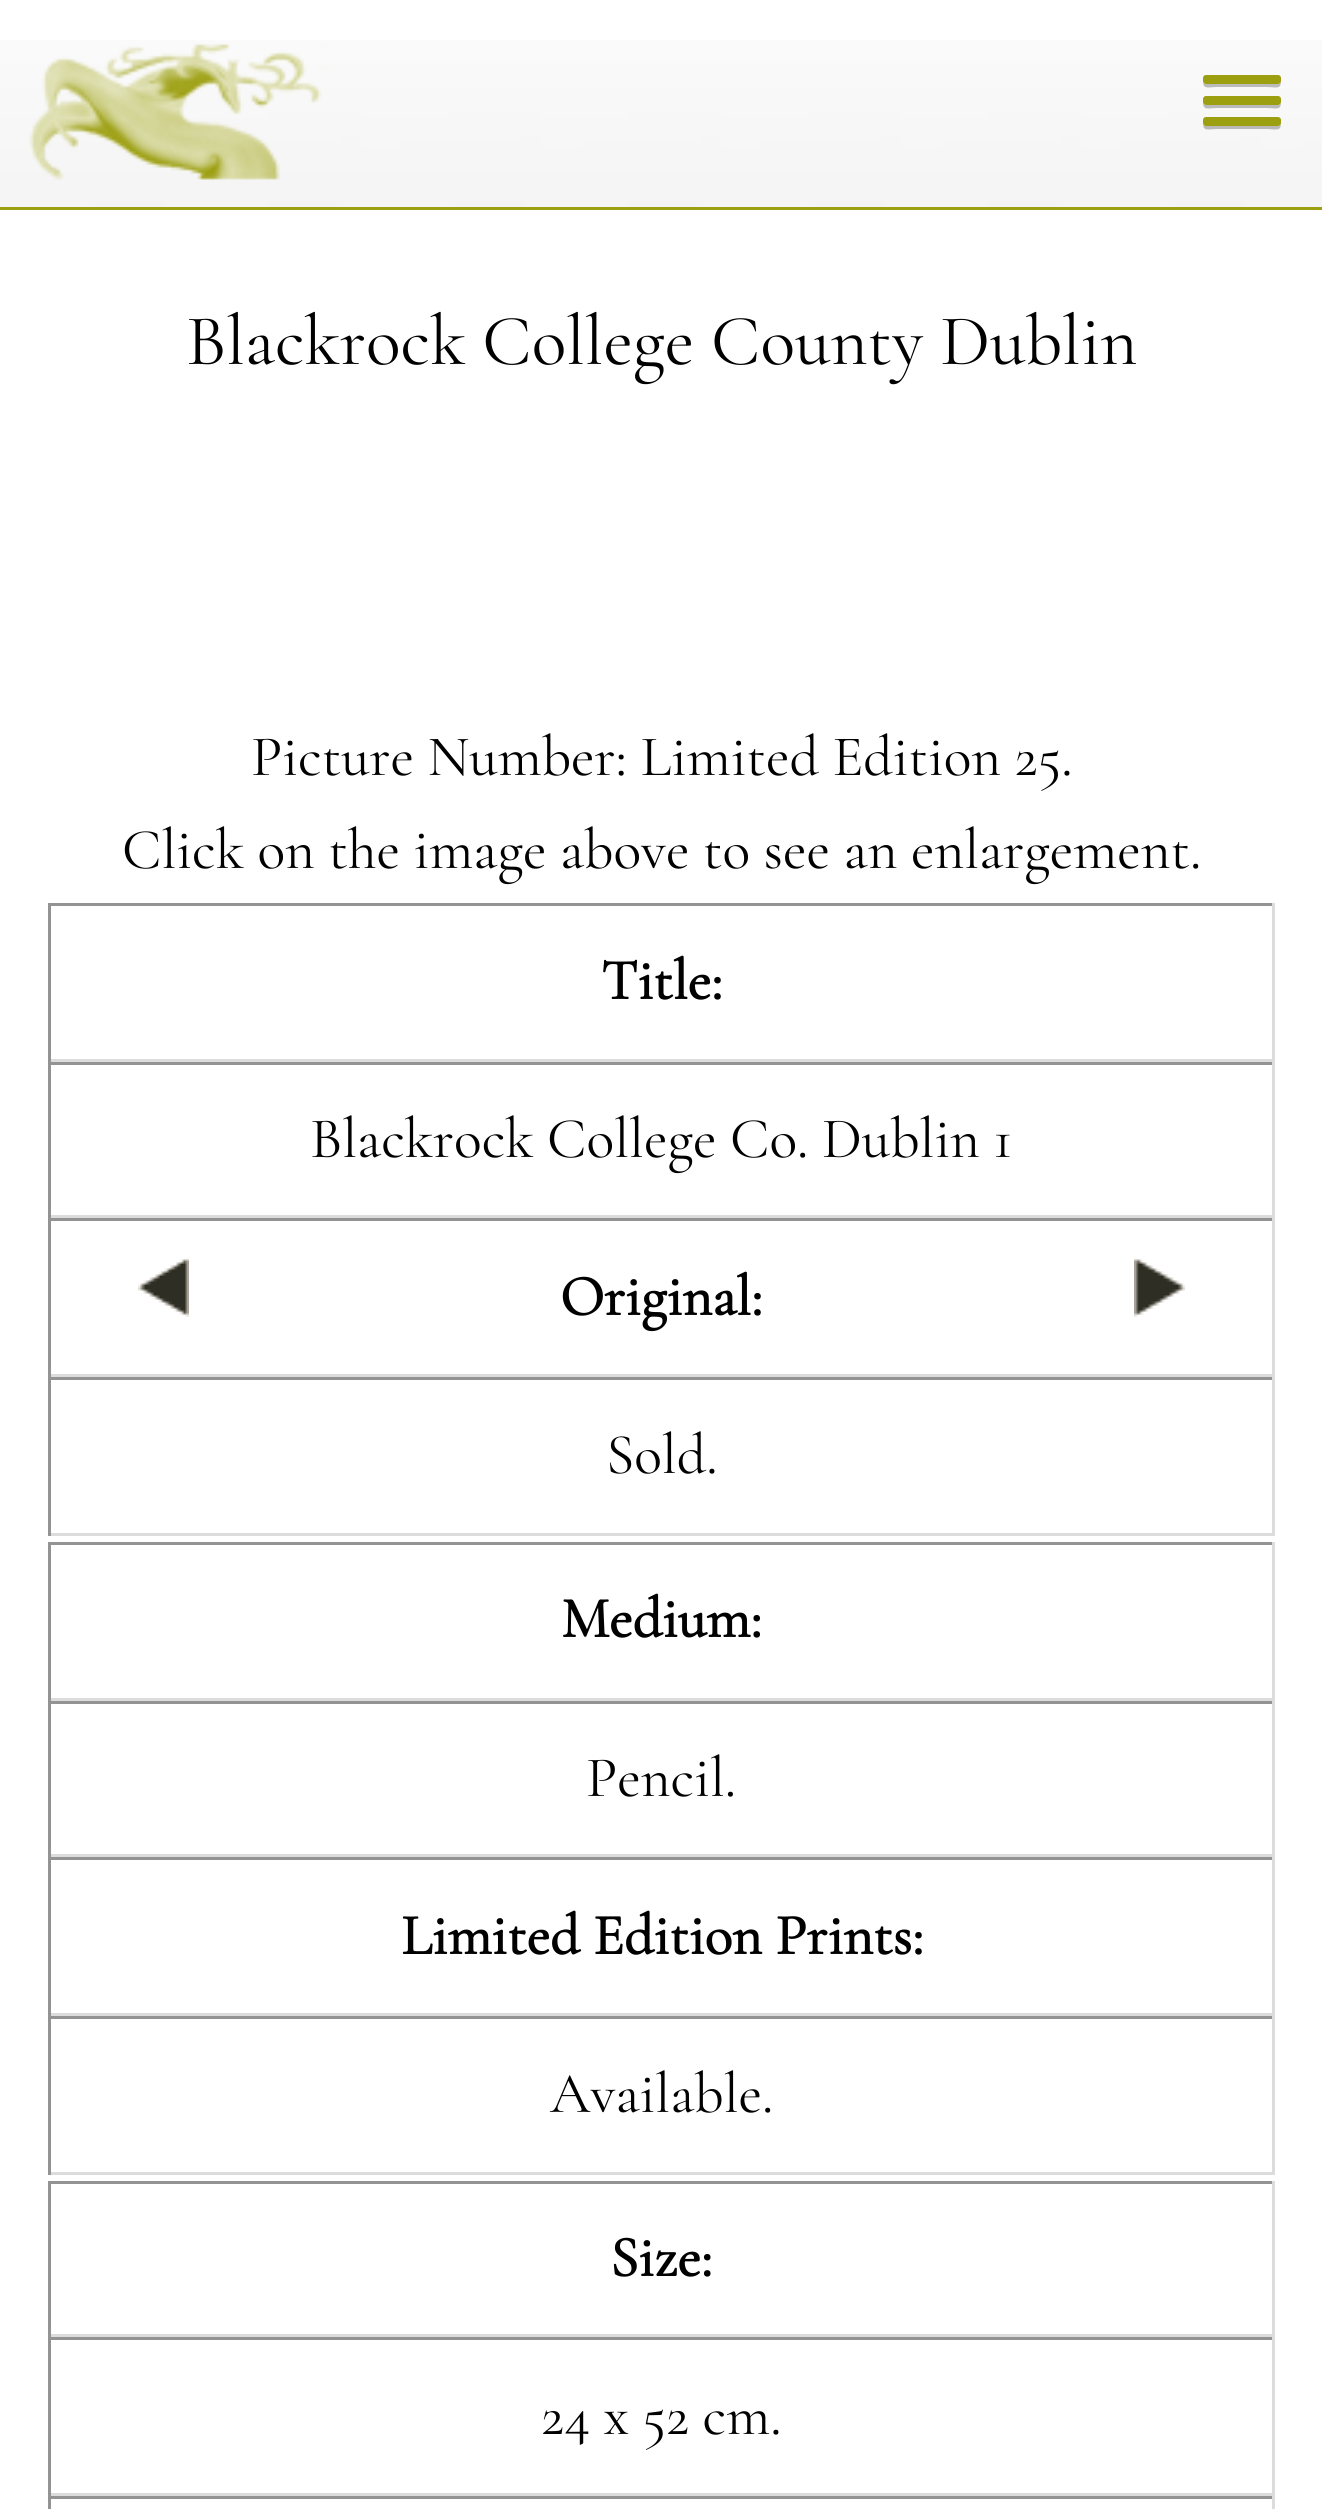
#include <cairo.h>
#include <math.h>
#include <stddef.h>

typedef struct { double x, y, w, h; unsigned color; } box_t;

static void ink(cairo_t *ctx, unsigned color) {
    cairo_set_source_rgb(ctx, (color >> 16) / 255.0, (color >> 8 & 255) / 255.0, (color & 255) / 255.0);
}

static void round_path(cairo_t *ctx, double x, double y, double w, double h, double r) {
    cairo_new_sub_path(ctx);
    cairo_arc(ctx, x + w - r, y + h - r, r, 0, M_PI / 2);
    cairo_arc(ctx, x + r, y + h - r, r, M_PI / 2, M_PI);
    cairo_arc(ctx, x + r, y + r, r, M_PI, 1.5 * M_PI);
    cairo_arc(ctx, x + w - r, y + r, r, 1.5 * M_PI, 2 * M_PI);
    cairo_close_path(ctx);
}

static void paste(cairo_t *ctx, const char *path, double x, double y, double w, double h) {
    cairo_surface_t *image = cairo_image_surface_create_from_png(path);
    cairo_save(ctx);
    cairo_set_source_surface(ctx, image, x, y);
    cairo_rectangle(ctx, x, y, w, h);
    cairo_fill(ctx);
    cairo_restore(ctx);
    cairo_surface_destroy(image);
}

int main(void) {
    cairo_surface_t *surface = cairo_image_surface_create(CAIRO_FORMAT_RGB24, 1322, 2509);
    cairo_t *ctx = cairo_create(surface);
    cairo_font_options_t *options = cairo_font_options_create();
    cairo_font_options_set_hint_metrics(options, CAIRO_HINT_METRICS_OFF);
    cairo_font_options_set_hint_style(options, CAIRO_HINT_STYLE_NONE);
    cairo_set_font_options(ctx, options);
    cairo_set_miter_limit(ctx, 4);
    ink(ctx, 0xFFFFFF);
    cairo_paint(ctx);
    paste(ctx, "media/1.png", 0, 40, 1322, 167);
    ink(ctx, 0x9C9F10);
    cairo_rectangle(ctx, 0, 207, 1322, 3);
    cairo_fill(ctx);
    ink(ctx, 0xBBBBBB);
    cairo_new_path(ctx);
    cairo_move_to(ctx, 1203, 81);
    cairo_curve_to(ctx, 1203, 90, 1208, 87, 1218, 87);
    cairo_line_to(ctx, 1266, 87);
    cairo_curve_to(ctx, 1276, 87, 1281, 90, 1281, 81);
    cairo_curve_to(ctx, 1281, 83, 1280, 84, 1278, 84);
    cairo_line_to(ctx, 1206, 84);
    cairo_curve_to(ctx, 1204, 84, 1203, 83, 1203, 81);
    cairo_close_path(ctx);
    cairo_fill(ctx);
    ink(ctx, 0x9C9F10);
    round_path(ctx, 1203, 75, 78, 9, 3);
    cairo_fill(ctx);
    ink(ctx, 0xBABABA);
    cairo_new_path(ctx);
    cairo_move_to(ctx, 1203, 102);
    cairo_curve_to(ctx, 1203, 111, 1208, 108, 1218, 108);
    cairo_line_to(ctx, 1266, 108);
    cairo_curve_to(ctx, 1276, 108, 1281, 111, 1281, 102);
    cairo_curve_to(ctx, 1281, 104, 1280, 105, 1278, 105);
    cairo_line_to(ctx, 1206, 105);
    cairo_curve_to(ctx, 1204, 105, 1203, 104, 1203, 102);
    cairo_close_path(ctx);
    cairo_fill(ctx);
    ink(ctx, 0x9C9F10);
    round_path(ctx, 1203, 96, 78, 9, 3);
    cairo_fill(ctx);
    ink(ctx, 0xB9B9B9);
    cairo_new_path(ctx);
    cairo_move_to(ctx, 1203, 123);
    cairo_curve_to(ctx, 1203, 132, 1208, 129, 1218, 129);
    cairo_line_to(ctx, 1266, 129);
    cairo_curve_to(ctx, 1276, 129, 1281, 132, 1281, 123);
    cairo_curve_to(ctx, 1281, 125, 1280, 126, 1278, 126);
    cairo_line_to(ctx, 1206, 126);
    cairo_curve_to(ctx, 1204, 126, 1203, 125, 1203, 123);
    cairo_close_path(ctx);
    cairo_fill(ctx);
    ink(ctx, 0x9C9F10);
    round_path(ctx, 1203, 117, 78, 9, 3);
    cairo_fill(ctx);
    cairo_select_font_face(ctx, "Cormorant Garamond Light", CAIRO_FONT_SLANT_NORMAL, CAIRO_FONT_WEIGHT_NORMAL);
    cairo_set_font_size(ctx, 72);
    ink(ctx, 0x000000);
    cairo_move_to(ctx, 186, 364);
    cairo_show_text(ctx, "Blackrock College County Dublin");
    cairo_set_font_size(ctx, 57.6);
    cairo_move_to(ctx, 251, 775);
    cairo_show_text(ctx, "Picture Number: Limited Edition 25.");
    cairo_move_to(ctx, 122, 868);
    cairo_show_text(ctx, "Click on the image above to see an enlargement.");
    paste(ctx, "media/2.png", 138, 1257, 51, 60);
    {
        static const box_t items[] = {
            {48, 903, 1227, 3, 0x939393},
            {1272, 903, 3, 159, 0xDCDCDC},
            {48, 1059, 1227, 3, 0xDCDCDC},
            {48, 903, 3, 159, 0x939393},
        };
        for (size_t i = 0; i < sizeof items / sizeof *items; i++) {
            ink(ctx, items[i].color);
            cairo_rectangle(ctx, items[i].x, items[i].y, items[i].w, items[i].h);
            cairo_fill(ctx);
        }
    }
    cairo_select_font_face(ctx, "Cormorant Garamond", CAIRO_FONT_SLANT_NORMAL, CAIRO_FONT_WEIGHT_BOLD);
    ink(ctx, 0x000000);
    cairo_move_to(ctx, 601, 999);
    cairo_show_text(ctx, "Title:");
    {
        static const box_t items[] = {
            {48, 1062, 1227, 3, 0x939393},
            {1272, 1062, 3, 156, 0xDCDCDC},
            {48, 1215, 1227, 3, 0xDCDCDC},
            {48, 1062, 3, 156, 0x939393},
        };
        for (size_t i = 0; i < sizeof items / sizeof *items; i++) {
            ink(ctx, items[i].color);
            cairo_rectangle(ctx, items[i].x, items[i].y, items[i].w, items[i].h);
            cairo_fill(ctx);
        }
    }
    cairo_select_font_face(ctx, "Cormorant Garamond Light", CAIRO_FONT_SLANT_NORMAL, CAIRO_FONT_WEIGHT_NORMAL);
    ink(ctx, 0x000000);
    cairo_move_to(ctx, 310, 1157);
    cairo_show_text(ctx, "Blackrock College Co. Dublin 1");
    {
        static const box_t items[] = {
            {48, 1218, 1227, 3, 0x939393},
            {1272, 1218, 3, 159, 0xDCDCDC},
            {48, 1374, 1227, 3, 0xDCDCDC},
            {48, 1218, 3, 159, 0x939393},
        };
        for (size_t i = 0; i < sizeof items / sizeof *items; i++) {
            ink(ctx, items[i].color);
            cairo_rectangle(ctx, items[i].x, items[i].y, items[i].w, items[i].h);
            cairo_fill(ctx);
        }
    }
    cairo_select_font_face(ctx, "Cormorant Garamond", CAIRO_FONT_SLANT_NORMAL, CAIRO_FONT_WEIGHT_BOLD);
    ink(ctx, 0x000000);
    cairo_move_to(ctx, 560, 1315);
    cairo_show_text(ctx, "Original:");
    {
        static const box_t items[] = {
            {48, 1377, 1227, 3, 0x939393},
            {1272, 1377, 3, 159, 0xDCDCDC},
            {48, 1533, 1227, 3, 0xDCDCDC},
            {48, 1377, 3, 159, 0x939393},
        };
        for (size_t i = 0; i < sizeof items / sizeof *items; i++) {
            ink(ctx, items[i].color);
            cairo_rectangle(ctx, items[i].x, items[i].y, items[i].w, items[i].h);
            cairo_fill(ctx);
        }
    }
    cairo_select_font_face(ctx, "Cormorant Garamond Light", CAIRO_FONT_SLANT_NORMAL, CAIRO_FONT_WEIGHT_NORMAL);
    ink(ctx, 0x000000);
    cairo_move_to(ctx, 606, 1473);
    cairo_show_text(ctx, "Sold.");
    {
        static const box_t items[] = {
            {48, 1542, 1227, 3, 0x939393},
            {1272, 1542, 3, 159, 0xDCDCDC},
            {48, 1698, 1227, 3, 0xDCDCDC},
            {48, 1542, 3, 159, 0x939393},
        };
        for (size_t i = 0; i < sizeof items / sizeof *items; i++) {
            ink(ctx, items[i].color);
            cairo_rectangle(ctx, items[i].x, items[i].y, items[i].w, items[i].h);
            cairo_fill(ctx);
        }
    }
    cairo_select_font_face(ctx, "Cormorant Garamond", CAIRO_FONT_SLANT_NORMAL, CAIRO_FONT_WEIGHT_BOLD);
    ink(ctx, 0x000000);
    cairo_move_to(ctx, 561, 1637);
    cairo_show_text(ctx, "Medium:");
    {
        static const box_t items[] = {
            {48, 1701, 1227, 3, 0x939393},
            {1272, 1701, 3, 156, 0xDCDCDC},
            {48, 1854, 1227, 3, 0xDCDCDC},
            {48, 1701, 3, 156, 0x939393},
        };
        for (size_t i = 0; i < sizeof items / sizeof *items; i++) {
            ink(ctx, items[i].color);
            cairo_rectangle(ctx, items[i].x, items[i].y, items[i].w, items[i].h);
            cairo_fill(ctx);
        }
    }
    cairo_select_font_face(ctx, "Cormorant Garamond Light", CAIRO_FONT_SLANT_NORMAL, CAIRO_FONT_WEIGHT_NORMAL);
    ink(ctx, 0x000000);
    cairo_move_to(ctx, 586, 1796);
    cairo_show_text(ctx, "Pencil.");
    {
        static const box_t items[] = {
            {48, 1857, 1227, 3, 0x939393},
            {1272, 1857, 3, 159, 0xDCDCDC},
            {48, 2013, 1227, 3, 0xDCDCDC},
            {48, 1857, 3, 159, 0x939393},
        };
        for (size_t i = 0; i < sizeof items / sizeof *items; i++) {
            ink(ctx, items[i].color);
            cairo_rectangle(ctx, items[i].x, items[i].y, items[i].w, items[i].h);
            cairo_fill(ctx);
        }
    }
    cairo_select_font_face(ctx, "Cormorant Garamond", CAIRO_FONT_SLANT_NORMAL, CAIRO_FONT_WEIGHT_BOLD);
    ink(ctx, 0x000000);
    cairo_move_to(ctx, 401, 1954);
    cairo_show_text(ctx, "Limited Edition Prints:");
    {
        static const box_t items[] = {
            {48, 2016, 1227, 3, 0x939393},
            {1272, 2016, 3, 159, 0xDCDCDC},
            {48, 2172, 1227, 3, 0xDCDCDC},
            {48, 2016, 3, 159, 0x939393},
        };
        for (size_t i = 0; i < sizeof items / sizeof *items; i++) {
            ink(ctx, items[i].color);
            cairo_rectangle(ctx, items[i].x, items[i].y, items[i].w, items[i].h);
            cairo_fill(ctx);
        }
    }
    cairo_select_font_face(ctx, "Cormorant Garamond Light", CAIRO_FONT_SLANT_NORMAL, CAIRO_FONT_WEIGHT_NORMAL);
    ink(ctx, 0x000000);
    cairo_move_to(ctx, 550, 2112);
    cairo_show_text(ctx, "Available.");
    {
        static const box_t items[] = {
            {48, 2181, 1227, 3, 0x939393},
            {1272, 2181, 3, 156, 0xDCDCDC},
            {48, 2334, 1227, 3, 0xDCDCDC},
            {48, 2181, 3, 156, 0x939393},
        };
        for (size_t i = 0; i < sizeof items / sizeof *items; i++) {
            ink(ctx, items[i].color);
            cairo_rectangle(ctx, items[i].x, items[i].y, items[i].w, items[i].h);
            cairo_fill(ctx);
        }
    }
    cairo_select_font_face(ctx, "Cormorant Garamond", CAIRO_FONT_SLANT_NORMAL, CAIRO_FONT_WEIGHT_BOLD);
    ink(ctx, 0x000000);
    cairo_move_to(ctx, 610, 2276);
    cairo_show_text(ctx, "Size:");
    {
        static const box_t items[] = {
            {48, 2337, 1227, 3, 0x939393},
            {1272, 2337, 3, 159, 0xDCDCDC},
            {48, 2493, 1227, 3, 0xDCDCDC},
            {48, 2337, 3, 159, 0x939393},
        };
        for (size_t i = 0; i < sizeof items / sizeof *items; i++) {
            ink(ctx, items[i].color);
            cairo_rectangle(ctx, items[i].x, items[i].y, items[i].w, items[i].h);
            cairo_fill(ctx);
        }
    }
    cairo_select_font_face(ctx, "Cormorant Garamond Light", CAIRO_FONT_SLANT_NORMAL, CAIRO_FONT_WEIGHT_NORMAL);
    ink(ctx, 0x000000);
    cairo_move_to(ctx, 541, 2434);
    cairo_show_text(ctx, "24 x 52 cm.");
    {
        static const box_t items[] = {
            {48, 2496, 1227, 3, 0x939393},
            {1272, 2496, 3, 13, 0xDCDCDC},
            {48, 2496, 3, 13, 0x939393},
        };
        for (size_t i = 0; i < sizeof items / sizeof *items; i++) {
            ink(ctx, items[i].color);
            cairo_rectangle(ctx, items[i].x, items[i].y, items[i].w, items[i].h);
            cairo_fill(ctx);
        }
    }
    paste(ctx, "media/3.png", 1134, 1257, 51, 60);
    cairo_surface_write_to_png(surface, "image.png");
    cairo_font_options_destroy(options);
    cairo_destroy(ctx);
    cairo_surface_destroy(surface);
    return 0;
}
